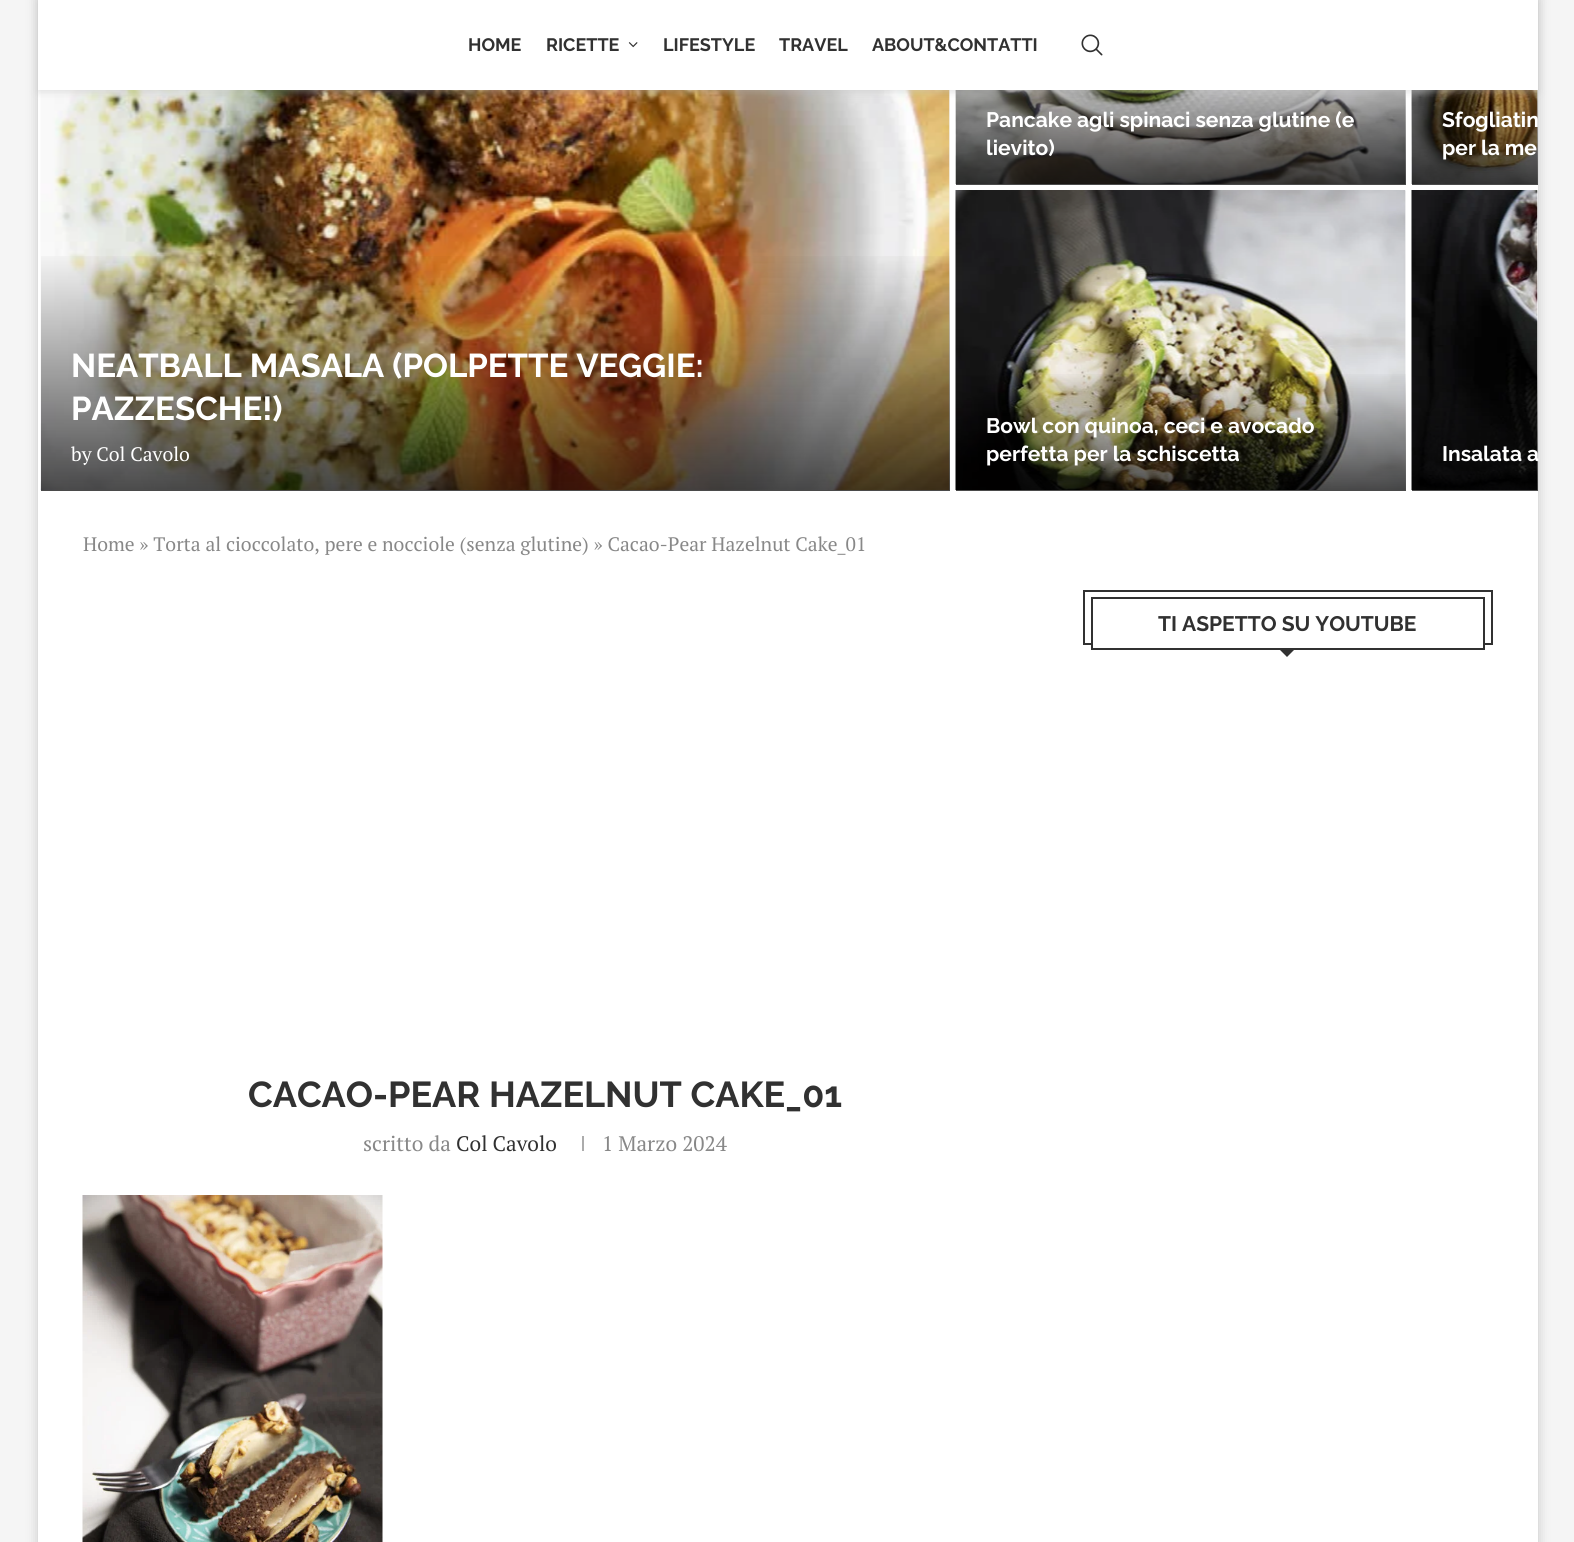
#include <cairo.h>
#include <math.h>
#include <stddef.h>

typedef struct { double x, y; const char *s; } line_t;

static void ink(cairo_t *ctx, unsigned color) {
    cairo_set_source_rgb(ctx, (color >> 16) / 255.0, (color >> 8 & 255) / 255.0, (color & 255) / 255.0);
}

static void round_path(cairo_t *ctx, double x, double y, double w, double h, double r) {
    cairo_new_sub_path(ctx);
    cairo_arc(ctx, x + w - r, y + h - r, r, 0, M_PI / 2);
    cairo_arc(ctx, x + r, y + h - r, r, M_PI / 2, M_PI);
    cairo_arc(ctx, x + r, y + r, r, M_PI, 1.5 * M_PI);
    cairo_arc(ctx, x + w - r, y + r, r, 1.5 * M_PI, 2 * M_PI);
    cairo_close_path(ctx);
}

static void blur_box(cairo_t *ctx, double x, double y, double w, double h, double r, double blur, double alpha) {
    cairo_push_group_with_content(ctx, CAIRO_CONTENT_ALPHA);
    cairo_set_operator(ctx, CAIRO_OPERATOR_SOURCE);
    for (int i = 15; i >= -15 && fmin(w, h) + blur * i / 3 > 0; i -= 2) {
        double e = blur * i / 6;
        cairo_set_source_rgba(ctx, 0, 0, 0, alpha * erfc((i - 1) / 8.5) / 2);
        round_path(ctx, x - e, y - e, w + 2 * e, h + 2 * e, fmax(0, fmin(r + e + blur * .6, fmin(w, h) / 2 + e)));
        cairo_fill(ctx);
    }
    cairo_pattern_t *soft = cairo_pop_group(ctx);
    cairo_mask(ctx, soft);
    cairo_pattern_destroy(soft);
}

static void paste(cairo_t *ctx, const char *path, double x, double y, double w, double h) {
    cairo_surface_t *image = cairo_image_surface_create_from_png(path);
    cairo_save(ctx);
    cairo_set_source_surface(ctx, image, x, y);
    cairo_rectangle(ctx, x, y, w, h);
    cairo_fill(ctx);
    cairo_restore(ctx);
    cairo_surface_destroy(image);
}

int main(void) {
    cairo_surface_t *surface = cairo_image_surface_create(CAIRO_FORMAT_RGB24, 1574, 1542);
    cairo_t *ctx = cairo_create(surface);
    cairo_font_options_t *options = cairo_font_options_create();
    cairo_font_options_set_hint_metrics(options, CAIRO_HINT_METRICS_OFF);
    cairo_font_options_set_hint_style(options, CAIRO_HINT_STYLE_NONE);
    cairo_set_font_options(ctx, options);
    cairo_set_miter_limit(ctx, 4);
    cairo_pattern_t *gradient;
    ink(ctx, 0xF5F5F5);
    cairo_paint(ctx);
    ink(ctx, 0x000000);
    blur_box(ctx, 38, -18, 1500, 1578, 0, 6, 0.2);
    ink(ctx, 0xFFFFFF);
    cairo_rectangle(ctx, 38, 90, 1500, 1452);
    cairo_fill(ctx);
    ink(ctx, 0xF5F5F5);
    cairo_rectangle(ctx, 41, 90, 909, 401);
    cairo_fill(ctx);
    paste(ctx, "media/3.png", 40, 90, 910, 400);
    cairo_rectangle(ctx, 956, 90, 450, 95);
    cairo_fill(ctx);
    paste(ctx, "media/4.png", 955, 90, 451, 94);
    gradient = cairo_pattern_create_linear(1181, -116, 1181, 185);
    cairo_pattern_add_color_stop_rgba(gradient, 0.6, 0, 0, 0, 0);
    cairo_pattern_add_color_stop_rgba(gradient, 1, 0, 0, 0, 0.7);
    cairo_set_source(ctx, gradient);
    cairo_pattern_destroy(gradient);
    cairo_rectangle(ctx, 956, 90, 450, 95);
    cairo_fill(ctx);
    ink(ctx, 0xF5F5F5);
    cairo_rectangle(ctx, 1412, 90, 126, 95);
    cairo_fill(ctx);
    paste(ctx, "media/6.png", 1411, 90, 127, 94);
    gradient = cairo_pattern_create_linear(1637, -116, 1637, 185);
    cairo_pattern_add_color_stop_rgba(gradient, 0.6, 0, 0, 0, 0);
    cairo_pattern_add_color_stop_rgba(gradient, 1, 0, 0, 0, 0.7);
    cairo_set_source(ctx, gradient);
    cairo_pattern_destroy(gradient);
    cairo_rectangle(ctx, 1412, 90, 126, 95);
    cairo_fill(ctx);
    ink(ctx, 0xBEBEBE);
    blur_box(ctx, 38, 2, 1500, 90, 0, 4, 0.46);
    ink(ctx, 0xFFFFFF);
    cairo_rectangle(ctx, 38, 0, 1500, 90);
    cairo_fill(ctx);
    cairo_select_font_face(ctx, "Raleway", CAIRO_FONT_SLANT_NORMAL, CAIRO_FONT_WEIGHT_BOLD);
    cairo_set_font_size(ctx, 18);
    ink(ctx, 0x313131);
    cairo_move_to(ctx, 468, 51);
    cairo_show_text(ctx, "HOME");
    cairo_move_to(ctx, 546, 51);
    cairo_show_text(ctx, "RICETTE");
    paste(ctx, "media/1.png", 628, 42, 10, 6);
    {
        static const line_t items[] = {
            {663, 51, "LIFESTYLE"},
            {779, 51, "TRAVEL"},
            {872, 51, "ABOUT&CONTATTI"},
        };
        for (size_t i = 0; i < sizeof items / sizeof *items; i++) {
            cairo_move_to(ctx, items[i].x, items[i].y);
            cairo_show_text(ctx, items[i].s);
        }
    }
    paste(ctx, "media/2.png", 1081, 34, 22, 22);
    gradient = cairo_pattern_create_linear(495, -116, 495, 491);
    cairo_pattern_add_color_stop_rgba(gradient, 0.6, 0, 0, 0, 0);
    cairo_pattern_add_color_stop_rgba(gradient, 1, 0, 0, 0, 0.7);
    cairo_set_source(ctx, gradient);
    cairo_pattern_destroy(gradient);
    cairo_rectangle(ctx, 41, 256, 909, 235);
    cairo_fill(ctx);
    cairo_set_font_size(ctx, 33);
    ink(ctx, 0xFFFFFF);
    cairo_move_to(ctx, 71, 377);
    cairo_show_text(ctx, "NEATBALL MASALA (POLPETTE VEGGIE:");
    cairo_move_to(ctx, 71, 420);
    cairo_show_text(ctx, "PAZZESCHE!)");
    cairo_select_font_face(ctx, "PT Serif", CAIRO_FONT_SLANT_NORMAL, CAIRO_FONT_WEIGHT_NORMAL);
    cairo_set_font_size(ctx, 19.5);
    cairo_move_to(ctx, 71, 461);
    cairo_show_text(ctx, "by Col Cavolo");
    cairo_select_font_face(ctx, "Raleway", CAIRO_FONT_SLANT_NORMAL, CAIRO_FONT_WEIGHT_BOLD);
    cairo_set_font_size(ctx, 21);
    cairo_move_to(ctx, 986, 127);
    cairo_show_text(ctx, "Pancake agli spinaci senza glutine (e");
    cairo_move_to(ctx, 986, 155);
    cairo_show_text(ctx, "lievito)");
    ink(ctx, 0xF5F5F5);
    cairo_rectangle(ctx, 956, 191, 450, 300);
    cairo_fill(ctx);
    paste(ctx, "media/5.png", 955, 190, 451, 300);
    gradient = cairo_pattern_create_linear(1181, 190, 1181, 491);
    cairo_pattern_add_color_stop_rgba(gradient, 0.6, 0, 0, 0, 0);
    cairo_pattern_add_color_stop_rgba(gradient, 1, 0, 0, 0, 0.7);
    cairo_set_source(ctx, gradient);
    cairo_pattern_destroy(gradient);
    cairo_rectangle(ctx, 956, 374, 450, 117);
    cairo_fill(ctx);
    ink(ctx, 0xFFFFFF);
    {
        static const line_t items[] = {
            {986, 433, "Bowl con quinoa, ceci e avocado"},
            {986, 461, "perfetta per la schiscetta"},
            {1442, 127, "Sfogliatin"},
            {1442, 155, "per la me"},
        };
        for (size_t i = 0; i < sizeof items / sizeof *items; i++) {
            cairo_move_to(ctx, items[i].x, items[i].y);
            cairo_show_text(ctx, items[i].s);
        }
    }
    ink(ctx, 0xF5F5F5);
    cairo_rectangle(ctx, 1412, 191, 126, 300);
    cairo_fill(ctx);
    paste(ctx, "media/7.png", 1411, 190, 127, 300);
    gradient = cairo_pattern_create_linear(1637, 190, 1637, 491);
    cairo_pattern_add_color_stop_rgba(gradient, 0.6, 0, 0, 0, 0);
    cairo_pattern_add_color_stop_rgba(gradient, 1, 0, 0, 0, 0.7);
    cairo_set_source(ctx, gradient);
    cairo_pattern_destroy(gradient);
    cairo_rectangle(ctx, 1412, 374, 126, 117);
    cairo_fill(ctx);
    ink(ctx, 0xFFFFFF);
    cairo_move_to(ctx, 1442, 461);
    cairo_show_text(ctx, "Insalata a");
    cairo_select_font_face(ctx, "PT Serif", CAIRO_FONT_SLANT_NORMAL, CAIRO_FONT_WEIGHT_NORMAL);
    cairo_set_font_size(ctx, 19.5);
    ink(ctx, 0x888888);
    cairo_move_to(ctx, 83, 551);
    cairo_show_text(ctx, "Home » Torta al cioccolato, pere e nocciole (senza glutine) » Cacao-Pear Hazelnut Cake_01");
    cairo_rectangle(ctx, 1084, 591, 408, 53);
    ink(ctx, 0x313131);
    cairo_stroke(ctx);
    ink(ctx, 0xFFFFFF);
    cairo_rectangle(ctx, 1093, 643, 390, 2);
    cairo_fill(ctx);
    cairo_rectangle(ctx, 1092, 598, 392, 51);
    ink(ctx, 0x313131);
    cairo_stroke(ctx);
    cairo_select_font_face(ctx, "Raleway", CAIRO_FONT_SLANT_NORMAL, CAIRO_FONT_WEIGHT_BOLD);
    cairo_set_font_size(ctx, 21);
    cairo_move_to(ctx, 1158, 631);
    cairo_show_text(ctx, "TI ASPETTO SU YOUTUBE");
    cairo_new_path(ctx);
    cairo_move_to(ctx, 1278, 648);
    cairo_line_to(ctx, 1296, 648);
    cairo_line_to(ctx, 1287, 657);
    cairo_close_path(ctx);
    cairo_fill(ctx);
    cairo_set_font_size(ctx, 36);
    cairo_move_to(ctx, 248, 1107);
    cairo_show_text(ctx, "CACAO-PEAR HAZELNUT CAKE_01");
    cairo_select_font_face(ctx, "PT Serif", CAIRO_FONT_SLANT_NORMAL, CAIRO_FONT_WEIGHT_NORMAL);
    cairo_set_font_size(ctx, 21);
    ink(ctx, 0x888888);
    cairo_move_to(ctx, 363, 1151);
    cairo_show_text(ctx, "scritto da");
    ink(ctx, 0x313131);
    cairo_move_to(ctx, 456, 1151);
    cairo_show_text(ctx, "Col Cavolo");
    ink(ctx, 0xACACAC);
    cairo_rectangle(ctx, 582, 1136, 2, 15);
    cairo_fill(ctx);
    ink(ctx, 0x888888);
    cairo_move_to(ctx, 602, 1151);
    cairo_show_text(ctx, "1 Marzo 2024");
    paste(ctx, "media/8.png", 82, 1195, 301, 347);
    cairo_surface_write_to_png(surface, "image.png");
    cairo_font_options_destroy(options);
    cairo_destroy(ctx);
    cairo_surface_destroy(surface);
    return 0;
}
